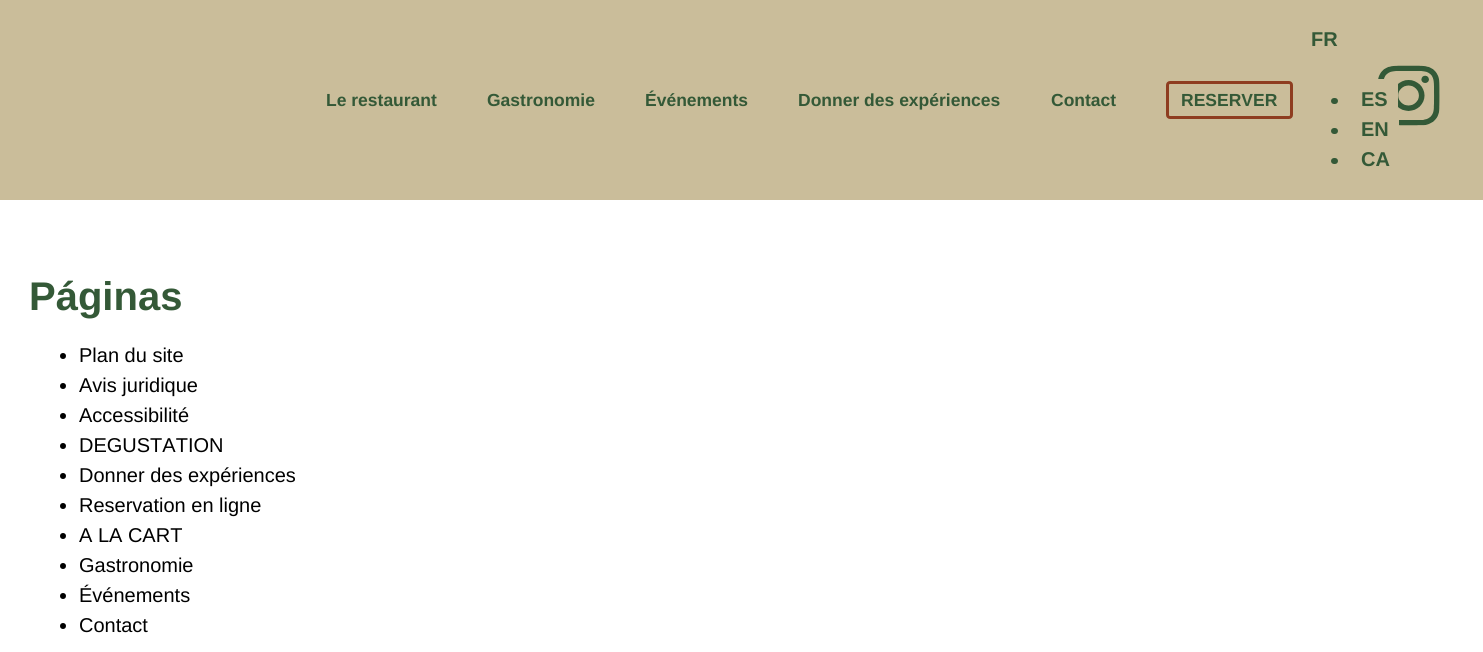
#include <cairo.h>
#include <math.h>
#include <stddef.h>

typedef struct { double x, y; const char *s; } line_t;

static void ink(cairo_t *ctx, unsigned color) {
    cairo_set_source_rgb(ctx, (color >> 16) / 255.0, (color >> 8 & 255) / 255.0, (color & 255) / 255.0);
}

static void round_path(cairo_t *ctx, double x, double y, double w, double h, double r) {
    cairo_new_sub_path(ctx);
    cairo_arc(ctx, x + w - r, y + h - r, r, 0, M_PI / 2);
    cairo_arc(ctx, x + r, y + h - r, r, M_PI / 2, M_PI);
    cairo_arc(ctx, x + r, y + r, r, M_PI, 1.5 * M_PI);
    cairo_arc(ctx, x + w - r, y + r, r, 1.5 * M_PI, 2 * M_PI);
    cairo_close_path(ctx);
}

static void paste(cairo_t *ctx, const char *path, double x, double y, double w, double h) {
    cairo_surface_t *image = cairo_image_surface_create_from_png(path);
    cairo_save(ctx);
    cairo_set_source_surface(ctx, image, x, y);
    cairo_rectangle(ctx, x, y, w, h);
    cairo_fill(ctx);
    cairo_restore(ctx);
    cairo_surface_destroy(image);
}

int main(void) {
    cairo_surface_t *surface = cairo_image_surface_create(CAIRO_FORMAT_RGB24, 1483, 652);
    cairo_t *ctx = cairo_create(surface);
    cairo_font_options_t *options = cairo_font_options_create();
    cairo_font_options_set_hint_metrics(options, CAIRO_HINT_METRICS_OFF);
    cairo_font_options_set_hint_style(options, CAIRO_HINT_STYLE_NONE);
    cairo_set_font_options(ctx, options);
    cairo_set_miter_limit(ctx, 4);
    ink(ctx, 0xFFFFFF);
    cairo_paint(ctx);
    ink(ctx, 0xCABD9A);
    cairo_rectangle(ctx, 0, 0, 1483, 200);
    cairo_fill(ctx);
    cairo_select_font_face(ctx, "Liberation Sans", CAIRO_FONT_SLANT_NORMAL, CAIRO_FONT_WEIGHT_BOLD);
    cairo_set_font_size(ctx, 17.5);
    ink(ctx, 0x345937);
    {
        static const line_t items[] = {
            {326, 106, "Le restaurant"},
            {487, 106, "Gastronomie"},
            {645, 106, "Événements"},
            {798, 106, "Donner des expériences"},
            {1051, 106, "Contact"},
        };
        for (size_t i = 0; i < sizeof items / sizeof *items; i++) {
            cairo_move_to(ctx, items[i].x, items[i].y);
            cairo_show_text(ctx, items[i].s);
        }
    }
    round_path(ctx, 1167.5, 82.5, 124, 35, 2.5);
    ink(ctx, 0x8E3D20);
    cairo_set_line_width(ctx, 3);
    cairo_stroke(ctx);
    ink(ctx, 0x345937);
    cairo_move_to(ctx, 1181, 106);
    cairo_show_text(ctx, "RESERVER");
    cairo_set_font_size(ctx, 20);
    cairo_move_to(ctx, 1311, 46);
    cairo_show_text(ctx, "FR");
    round_path(ctx, 1331, 98, 7, 6, 3);
    cairo_fill(ctx);
    paste(ctx, "media/1.png", 1378, 65, 62, 61);
    ink(ctx, 0xCABD9A);
    cairo_rectangle(ctx, 1378, 79, 20, 30);
    cairo_fill(ctx);
    ink(ctx, 0x345937);
    cairo_move_to(ctx, 1361, 106);
    cairo_show_text(ctx, "ES");
    round_path(ctx, 1331, 128, 7, 6, 3);
    cairo_fill(ctx);
    ink(ctx, 0xCABD9A);
    cairo_rectangle(ctx, 1378, 109, 21, 17);
    cairo_fill(ctx);
    ink(ctx, 0x345937);
    cairo_move_to(ctx, 1361, 136);
    cairo_show_text(ctx, "EN");
    round_path(ctx, 1331, 158, 7, 6, 3);
    cairo_fill(ctx);
    cairo_move_to(ctx, 1361, 166);
    cairo_show_text(ctx, "CA");
    cairo_set_font_size(ctx, 40);
    cairo_move_to(ctx, 29, 310);
    cairo_show_text(ctx, "Páginas");
    ink(ctx, 0x000000);
    cairo_new_path(ctx);
    cairo_arc(ctx, 63, 356, 3, 0, 2 * M_PI);
    cairo_fill(ctx);
    cairo_select_font_face(ctx, "Liberation Sans", CAIRO_FONT_SLANT_NORMAL, CAIRO_FONT_WEIGHT_NORMAL);
    cairo_set_font_size(ctx, 20);
    cairo_move_to(ctx, 79, 362);
    cairo_show_text(ctx, "Plan du site");
    cairo_new_path(ctx);
    cairo_arc(ctx, 63, 386, 3, 0, 2 * M_PI);
    cairo_fill(ctx);
    cairo_move_to(ctx, 79, 392);
    cairo_show_text(ctx, "Avis juridique");
    cairo_new_path(ctx);
    cairo_arc(ctx, 63, 416, 3, 0, 2 * M_PI);
    cairo_fill(ctx);
    cairo_move_to(ctx, 79, 422);
    cairo_show_text(ctx, "Accessibilité");
    cairo_new_path(ctx);
    cairo_arc(ctx, 63, 446, 3, 0, 2 * M_PI);
    cairo_fill(ctx);
    cairo_move_to(ctx, 79, 452);
    cairo_show_text(ctx, "DEGUSTATION");
    cairo_new_path(ctx);
    cairo_arc(ctx, 63, 476, 3, 0, 2 * M_PI);
    cairo_fill(ctx);
    cairo_move_to(ctx, 79, 482);
    cairo_show_text(ctx, "Donner des expériences");
    cairo_new_path(ctx);
    cairo_arc(ctx, 63, 506, 3, 0, 2 * M_PI);
    cairo_fill(ctx);
    cairo_move_to(ctx, 79, 512);
    cairo_show_text(ctx, "Reservation en ligne");
    cairo_new_path(ctx);
    cairo_arc(ctx, 63, 536, 3, 0, 2 * M_PI);
    cairo_fill(ctx);
    cairo_move_to(ctx, 79, 542);
    cairo_show_text(ctx, "A LA CART");
    cairo_new_path(ctx);
    cairo_arc(ctx, 63, 566, 3, 0, 2 * M_PI);
    cairo_fill(ctx);
    cairo_move_to(ctx, 79, 572);
    cairo_show_text(ctx, "Gastronomie");
    cairo_new_path(ctx);
    cairo_arc(ctx, 63, 596, 3, 0, 2 * M_PI);
    cairo_fill(ctx);
    cairo_move_to(ctx, 79, 602);
    cairo_show_text(ctx, "Événements");
    cairo_new_path(ctx);
    cairo_arc(ctx, 63, 626, 3, 0, 2 * M_PI);
    cairo_fill(ctx);
    cairo_move_to(ctx, 79, 632);
    cairo_show_text(ctx, "Contact");
    cairo_surface_write_to_png(surface, "image.png");
    cairo_font_options_destroy(options);
    cairo_destroy(ctx);
    cairo_surface_destroy(surface);
    return 0;
}
